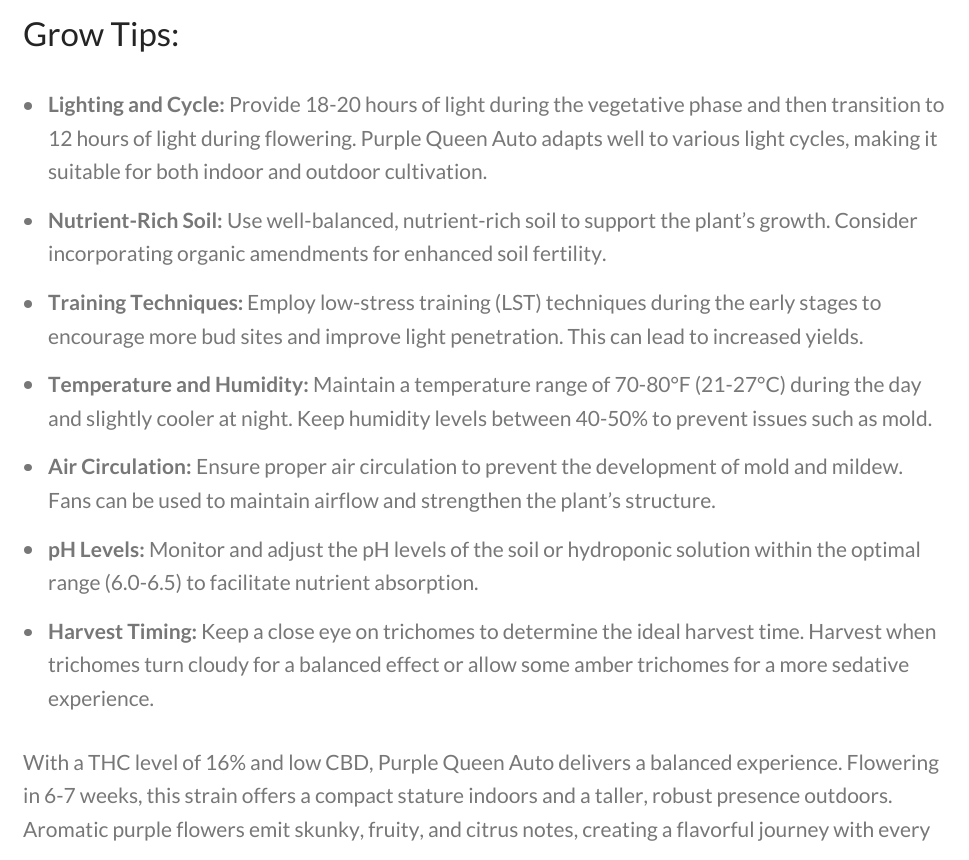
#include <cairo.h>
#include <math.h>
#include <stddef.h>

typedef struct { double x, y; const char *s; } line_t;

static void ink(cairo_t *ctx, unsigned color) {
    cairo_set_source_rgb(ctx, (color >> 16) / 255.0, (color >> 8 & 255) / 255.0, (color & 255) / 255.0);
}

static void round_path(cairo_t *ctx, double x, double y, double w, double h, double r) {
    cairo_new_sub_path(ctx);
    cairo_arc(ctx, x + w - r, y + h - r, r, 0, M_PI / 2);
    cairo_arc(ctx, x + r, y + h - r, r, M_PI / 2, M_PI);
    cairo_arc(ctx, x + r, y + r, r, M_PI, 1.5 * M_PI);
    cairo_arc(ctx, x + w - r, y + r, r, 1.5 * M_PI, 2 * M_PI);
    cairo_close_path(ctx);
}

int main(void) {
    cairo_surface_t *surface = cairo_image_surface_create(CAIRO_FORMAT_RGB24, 969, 860);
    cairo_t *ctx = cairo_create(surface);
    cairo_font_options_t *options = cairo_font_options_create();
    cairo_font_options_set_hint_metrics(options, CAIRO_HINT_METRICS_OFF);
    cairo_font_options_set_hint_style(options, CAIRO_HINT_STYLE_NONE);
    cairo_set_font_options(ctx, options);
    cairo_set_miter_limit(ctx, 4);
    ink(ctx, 0xFFFFFF);
    cairo_paint(ctx);
    cairo_select_font_face(ctx, "Lato", CAIRO_FONT_SLANT_NORMAL, CAIRO_FONT_WEIGHT_NORMAL);
    cairo_set_font_size(ctx, 33);
    ink(ctx, 0x242424);
    cairo_move_to(ctx, 23, 46);
    cairo_show_text(ctx, "Grow Tips:");
    ink(ctx, 0x777777);
    cairo_new_path(ctx);
    cairo_arc(ctx, 28, 106, 4, 0, 2 * M_PI);
    cairo_fill(ctx);
    cairo_select_font_face(ctx, "Lato", CAIRO_FONT_SLANT_NORMAL, CAIRO_FONT_WEIGHT_BOLD);
    cairo_set_font_size(ctx, 21);
    cairo_move_to(ctx, 48, 112);
    cairo_show_text(ctx, "Lighting and Cycle:");
    cairo_select_font_face(ctx, "Lato", CAIRO_FONT_SLANT_NORMAL, CAIRO_FONT_WEIGHT_NORMAL);
    {
        static const line_t items[] = {
            {229, 112, "Provide 18-20 hours of light during the vegetative phase and then transition to"},
            {48, 146, "12 hours of light during flowering. Purple Queen Auto adapts well to various light cycles, making it"},
            {48, 179, "suitable for both indoor and outdoor cultivation."},
        };
        for (size_t i = 0; i < sizeof items / sizeof *items; i++) {
            cairo_move_to(ctx, items[i].x, items[i].y);
            cairo_show_text(ctx, items[i].s);
        }
    }
    round_path(ctx, 24, 218, 8, 7, 3.5);
    cairo_fill(ctx);
    cairo_select_font_face(ctx, "Lato", CAIRO_FONT_SLANT_NORMAL, CAIRO_FONT_WEIGHT_BOLD);
    cairo_move_to(ctx, 48, 228);
    cairo_show_text(ctx, "Nutrient-Rich Soil:");
    cairo_select_font_face(ctx, "Lato", CAIRO_FONT_SLANT_NORMAL, CAIRO_FONT_WEIGHT_NORMAL);
    cairo_move_to(ctx, 227, 228);
    cairo_show_text(ctx, "Use well-balanced, nutrient-rich soil to support the plant’s growth. Consider");
    cairo_move_to(ctx, 48, 261);
    cairo_show_text(ctx, "incorporating organic amendments for enhanced soil fertility.");
    cairo_new_path(ctx);
    cairo_arc(ctx, 28, 304, 4, 0, 2 * M_PI);
    cairo_fill(ctx);
    cairo_select_font_face(ctx, "Lato", CAIRO_FONT_SLANT_NORMAL, CAIRO_FONT_WEIGHT_BOLD);
    cairo_move_to(ctx, 48, 310);
    cairo_show_text(ctx, "Training Techniques:");
    cairo_select_font_face(ctx, "Lato", CAIRO_FONT_SLANT_NORMAL, CAIRO_FONT_WEIGHT_NORMAL);
    cairo_move_to(ctx, 247, 310);
    cairo_show_text(ctx, "Employ low-stress training (LST) techniques during the early stages to");
    cairo_move_to(ctx, 48, 344);
    cairo_show_text(ctx, "encourage more bud sites and improve light penetration. This can lead to increased yields.");
    cairo_new_path(ctx);
    cairo_arc(ctx, 28, 385, 4, 0, 2 * M_PI);
    cairo_fill(ctx);
    cairo_select_font_face(ctx, "Lato", CAIRO_FONT_SLANT_NORMAL, CAIRO_FONT_WEIGHT_BOLD);
    cairo_move_to(ctx, 48, 392);
    cairo_show_text(ctx, "Temperature and Humidity:");
    cairo_select_font_face(ctx, "Lato", CAIRO_FONT_SLANT_NORMAL, CAIRO_FONT_WEIGHT_NORMAL);
    cairo_move_to(ctx, 313, 392);
    cairo_show_text(ctx, "Maintain a temperature range of 70-80°F (21-27°C) during the day");
    cairo_move_to(ctx, 48, 426);
    cairo_show_text(ctx, "and slightly cooler at night. Keep humidity levels between 40-50% to prevent issues such as mold.");
    round_path(ctx, 24, 464, 8, 7, 3.5);
    cairo_fill(ctx);
    cairo_select_font_face(ctx, "Lato", CAIRO_FONT_SLANT_NORMAL, CAIRO_FONT_WEIGHT_BOLD);
    cairo_move_to(ctx, 48, 474);
    cairo_show_text(ctx, "Air Circulation:");
    cairo_select_font_face(ctx, "Lato", CAIRO_FONT_SLANT_NORMAL, CAIRO_FONT_WEIGHT_NORMAL);
    cairo_move_to(ctx, 196, 474);
    cairo_show_text(ctx, "Ensure proper air circulation to prevent the development of mold and mildew.");
    cairo_move_to(ctx, 48, 508);
    cairo_show_text(ctx, "Fans can be used to maintain airflow and strengthen the plant’s structure.");
    cairo_new_path(ctx);
    cairo_arc(ctx, 28, 550, 4, 0, 2 * M_PI);
    cairo_fill(ctx);
    cairo_select_font_face(ctx, "Lato", CAIRO_FONT_SLANT_NORMAL, CAIRO_FONT_WEIGHT_BOLD);
    cairo_move_to(ctx, 48, 557);
    cairo_show_text(ctx, "pH Levels:");
    cairo_select_font_face(ctx, "Lato", CAIRO_FONT_SLANT_NORMAL, CAIRO_FONT_WEIGHT_NORMAL);
    cairo_move_to(ctx, 149, 557);
    cairo_show_text(ctx, "Monitor and adjust the pH levels of the soil or hydroponic solution within the optimal");
    cairo_move_to(ctx, 48, 590);
    cairo_show_text(ctx, "range (6.0-6.5) to facilitate nutrient absorption.");
    round_path(ctx, 24, 629, 8, 7, 3.5);
    cairo_fill(ctx);
    cairo_select_font_face(ctx, "Lato", CAIRO_FONT_SLANT_NORMAL, CAIRO_FONT_WEIGHT_BOLD);
    cairo_move_to(ctx, 48, 639);
    cairo_show_text(ctx, "Harvest Timing:");
    cairo_select_font_face(ctx, "Lato", CAIRO_FONT_SLANT_NORMAL, CAIRO_FONT_WEIGHT_NORMAL);
    {
        static const line_t items[] = {
            {201, 639, "Keep a close eye on trichomes to determine the ideal harvest time. Harvest when"},
            {48, 672, "trichomes turn cloudy for a balanced effect or allow some amber trichomes for a more sedative"},
            {48, 706, "experience."},
            {23, 770, "With a THC level of 16% and low CBD, Purple Queen Auto delivers a balanced experience. Flowering"},
            {23, 803, "in 6-7 weeks, this strain offers a compact stature indoors and a taller, robust presence outdoors."},
            {23, 837, "Aromatic purple flowers emit skunky, fruity, and citrus notes, creating a flavorful journey with every"},
        };
        for (size_t i = 0; i < sizeof items / sizeof *items; i++) {
            cairo_move_to(ctx, items[i].x, items[i].y);
            cairo_show_text(ctx, items[i].s);
        }
    }
    cairo_surface_write_to_png(surface, "image.png");
    cairo_font_options_destroy(options);
    cairo_destroy(ctx);
    cairo_surface_destroy(surface);
    return 0;
}
